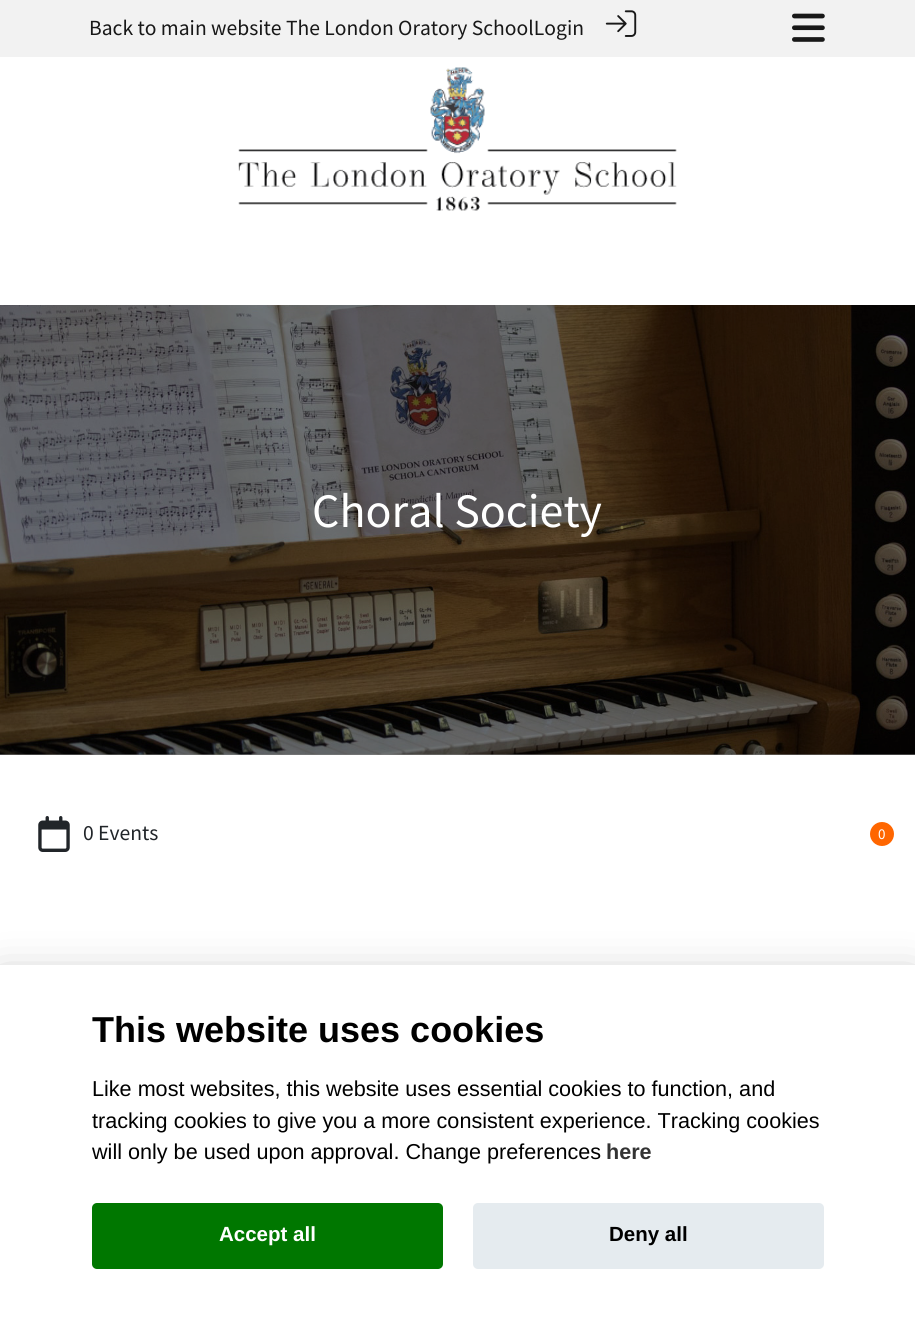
#include <cairo.h>
#include <math.h>
#include <stddef.h>

typedef struct { double x, y; const char *s; } line_t;

static void ink(cairo_t *ctx, unsigned color) {
    cairo_set_source_rgb(ctx, (color >> 16) / 255.0, (color >> 8 & 255) / 255.0, (color & 255) / 255.0);
}

static void round_path(cairo_t *ctx, double x, double y, double w, double h, double r) {
    cairo_new_sub_path(ctx);
    cairo_arc(ctx, x + w - r, y + h - r, r, 0, M_PI / 2);
    cairo_arc(ctx, x + r, y + h - r, r, M_PI / 2, M_PI);
    cairo_arc(ctx, x + r, y + r, r, M_PI, 1.5 * M_PI);
    cairo_arc(ctx, x + w - r, y + r, r, 1.5 * M_PI, 2 * M_PI);
    cairo_close_path(ctx);
}

static void blur_box(cairo_t *ctx, double x, double y, double w, double h, double r, double blur, double alpha) {
    cairo_push_group_with_content(ctx, CAIRO_CONTENT_ALPHA);
    cairo_set_operator(ctx, CAIRO_OPERATOR_SOURCE);
    for (int i = 15; i >= -15 && fmin(w, h) + blur * i / 3 > 0; i -= 2) {
        double e = blur * i / 6;
        cairo_set_source_rgba(ctx, 0, 0, 0, alpha * erfc((i - 1) / 8.5) / 2);
        round_path(ctx, x - e, y - e, w + 2 * e, h + 2 * e, fmax(0, fmin(r + e + blur * .6, fmin(w, h) / 2 + e)));
        cairo_fill(ctx);
    }
    cairo_pattern_t *soft = cairo_pop_group(ctx);
    cairo_mask(ctx, soft);
    cairo_pattern_destroy(soft);
}

static void paste(cairo_t *ctx, const char *path, double x, double y, double w, double h) {
    cairo_surface_t *image = cairo_image_surface_create_from_png(path);
    cairo_save(ctx);
    cairo_set_source_surface(ctx, image, x, y);
    cairo_rectangle(ctx, x, y, w, h);
    cairo_fill(ctx);
    cairo_restore(ctx);
    cairo_surface_destroy(image);
}

int main(void) {
    cairo_surface_t *surface = cairo_image_surface_create(CAIRO_FORMAT_RGB24, 915, 1325);
    cairo_t *ctx = cairo_create(surface);
    cairo_font_options_t *options = cairo_font_options_create();
    cairo_font_options_set_hint_metrics(options, CAIRO_HINT_METRICS_OFF);
    cairo_font_options_set_hint_style(options, CAIRO_HINT_STYLE_NONE);
    cairo_set_font_options(ctx, options);
    cairo_set_miter_limit(ctx, 4);
    ink(ctx, 0xFFFFFF);
    cairo_paint(ctx);
    ink(ctx, 0x808080);
    cairo_rectangle(ctx, 0, 754, 915, 1);
    cairo_fill(ctx);
    ink(ctx, 0xF2F2F2);
    cairo_rectangle(ctx, 0, 0, 915, 57);
    cairo_fill(ctx);
    cairo_select_font_face(ctx, "Source Sans Pro", CAIRO_FONT_SLANT_NORMAL, CAIRO_FONT_WEIGHT_NORMAL);
    cairo_set_font_size(ctx, 21.6);
    ink(ctx, 0x181818);
    cairo_move_to(ctx, 89, 35);
    cairo_show_text(ctx, "Back to main website The London Oratory SchoolLogin");
    paste(ctx, "media/1.png", 605, 10, 32, 27);
    paste(ctx, "media/2.png", 792, 13, 33, 29);
    paste(ctx, "media/3.png", 238, 67, 439, 144);
    paste(ctx, "media/4.png", 0, 305, 915, 450);
    cairo_set_font_size(ctx, 48);
    ink(ctx, 0xFFFFFF);
    cairo_move_to(ctx, 312, 527);
    cairo_show_text(ctx, "Choral Society");
    paste(ctx, "media/5.png", 38, 816, 32, 36);
    cairo_set_font_size(ctx, 21.6);
    ink(ctx, 0x212529);
    cairo_move_to(ctx, 83, 840);
    cairo_show_text(ctx, "0 Events");
    ink(ctx, 0xFF6600);
    cairo_new_path(ctx);
    cairo_arc(ctx, 882, 834, 12, 0, 2 * M_PI);
    cairo_fill(ctx);
    cairo_set_font_size(ctx, 15);
    ink(ctx, 0xFFFFFF);
    cairo_move_to(ctx, 878, 839);
    cairo_show_text(ctx, "0");
    ink(ctx, 0x020203);
    blur_box(ctx, 0, 980, 915, 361, 0, 22.5, 0.28);
    ink(ctx, 0xFFFFFF);
    cairo_rectangle(ctx, 0, 965, 915, 360);
    cairo_fill(ctx);
    cairo_select_font_face(ctx, "Liberation Sans", CAIRO_FONT_SLANT_NORMAL, CAIRO_FONT_WEIGHT_BOLD);
    cairo_set_font_size(ctx, 36);
    ink(ctx, 0x000000);
    cairo_move_to(ctx, 92, 1042);
    cairo_show_text(ctx, "This website uses cookies");
    cairo_select_font_face(ctx, "Liberation Sans", CAIRO_FONT_SLANT_NORMAL, CAIRO_FONT_WEIGHT_NORMAL);
    cairo_set_font_size(ctx, 21.6);
    {
        static const line_t items[] = {
            {92, 1096, "Like most websites, this website uses essential cookies to function, and"},
            {92, 1128, "tracking cookies to give you a more consistent experience. Tracking cookies"},
            {92, 1159, "will only be used upon approval. Change preferences"},
        };
        for (size_t i = 0; i < sizeof items / sizeof *items; i++) {
            cairo_move_to(ctx, items[i].x, items[i].y);
            cairo_show_text(ctx, items[i].s);
        }
    }
    cairo_select_font_face(ctx, "Liberation Sans", CAIRO_FONT_SLANT_NORMAL, CAIRO_FONT_WEIGHT_BOLD);
    ink(ctx, 0x333333);
    cairo_move_to(ctx, 606, 1159);
    cairo_show_text(ctx, "here");
    ink(ctx, 0x007700);
    round_path(ctx, 92, 1203, 351, 66, 5);
    cairo_fill(ctx);
    cairo_set_font_size(ctx, 20.5);
    ink(ctx, 0xFFFFFF);
    cairo_move_to(ctx, 219, 1241);
    cairo_show_text(ctx, "Accept all");
    ink(ctx, 0xE5EBEF);
    round_path(ctx, 473, 1203, 351, 66, 5);
    cairo_fill(ctx);
    ink(ctx, 0x000000);
    cairo_move_to(ctx, 609, 1241);
    cairo_show_text(ctx, "Deny all");
    cairo_surface_write_to_png(surface, "image.png");
    cairo_font_options_destroy(options);
    cairo_destroy(ctx);
    cairo_surface_destroy(surface);
    return 0;
}
